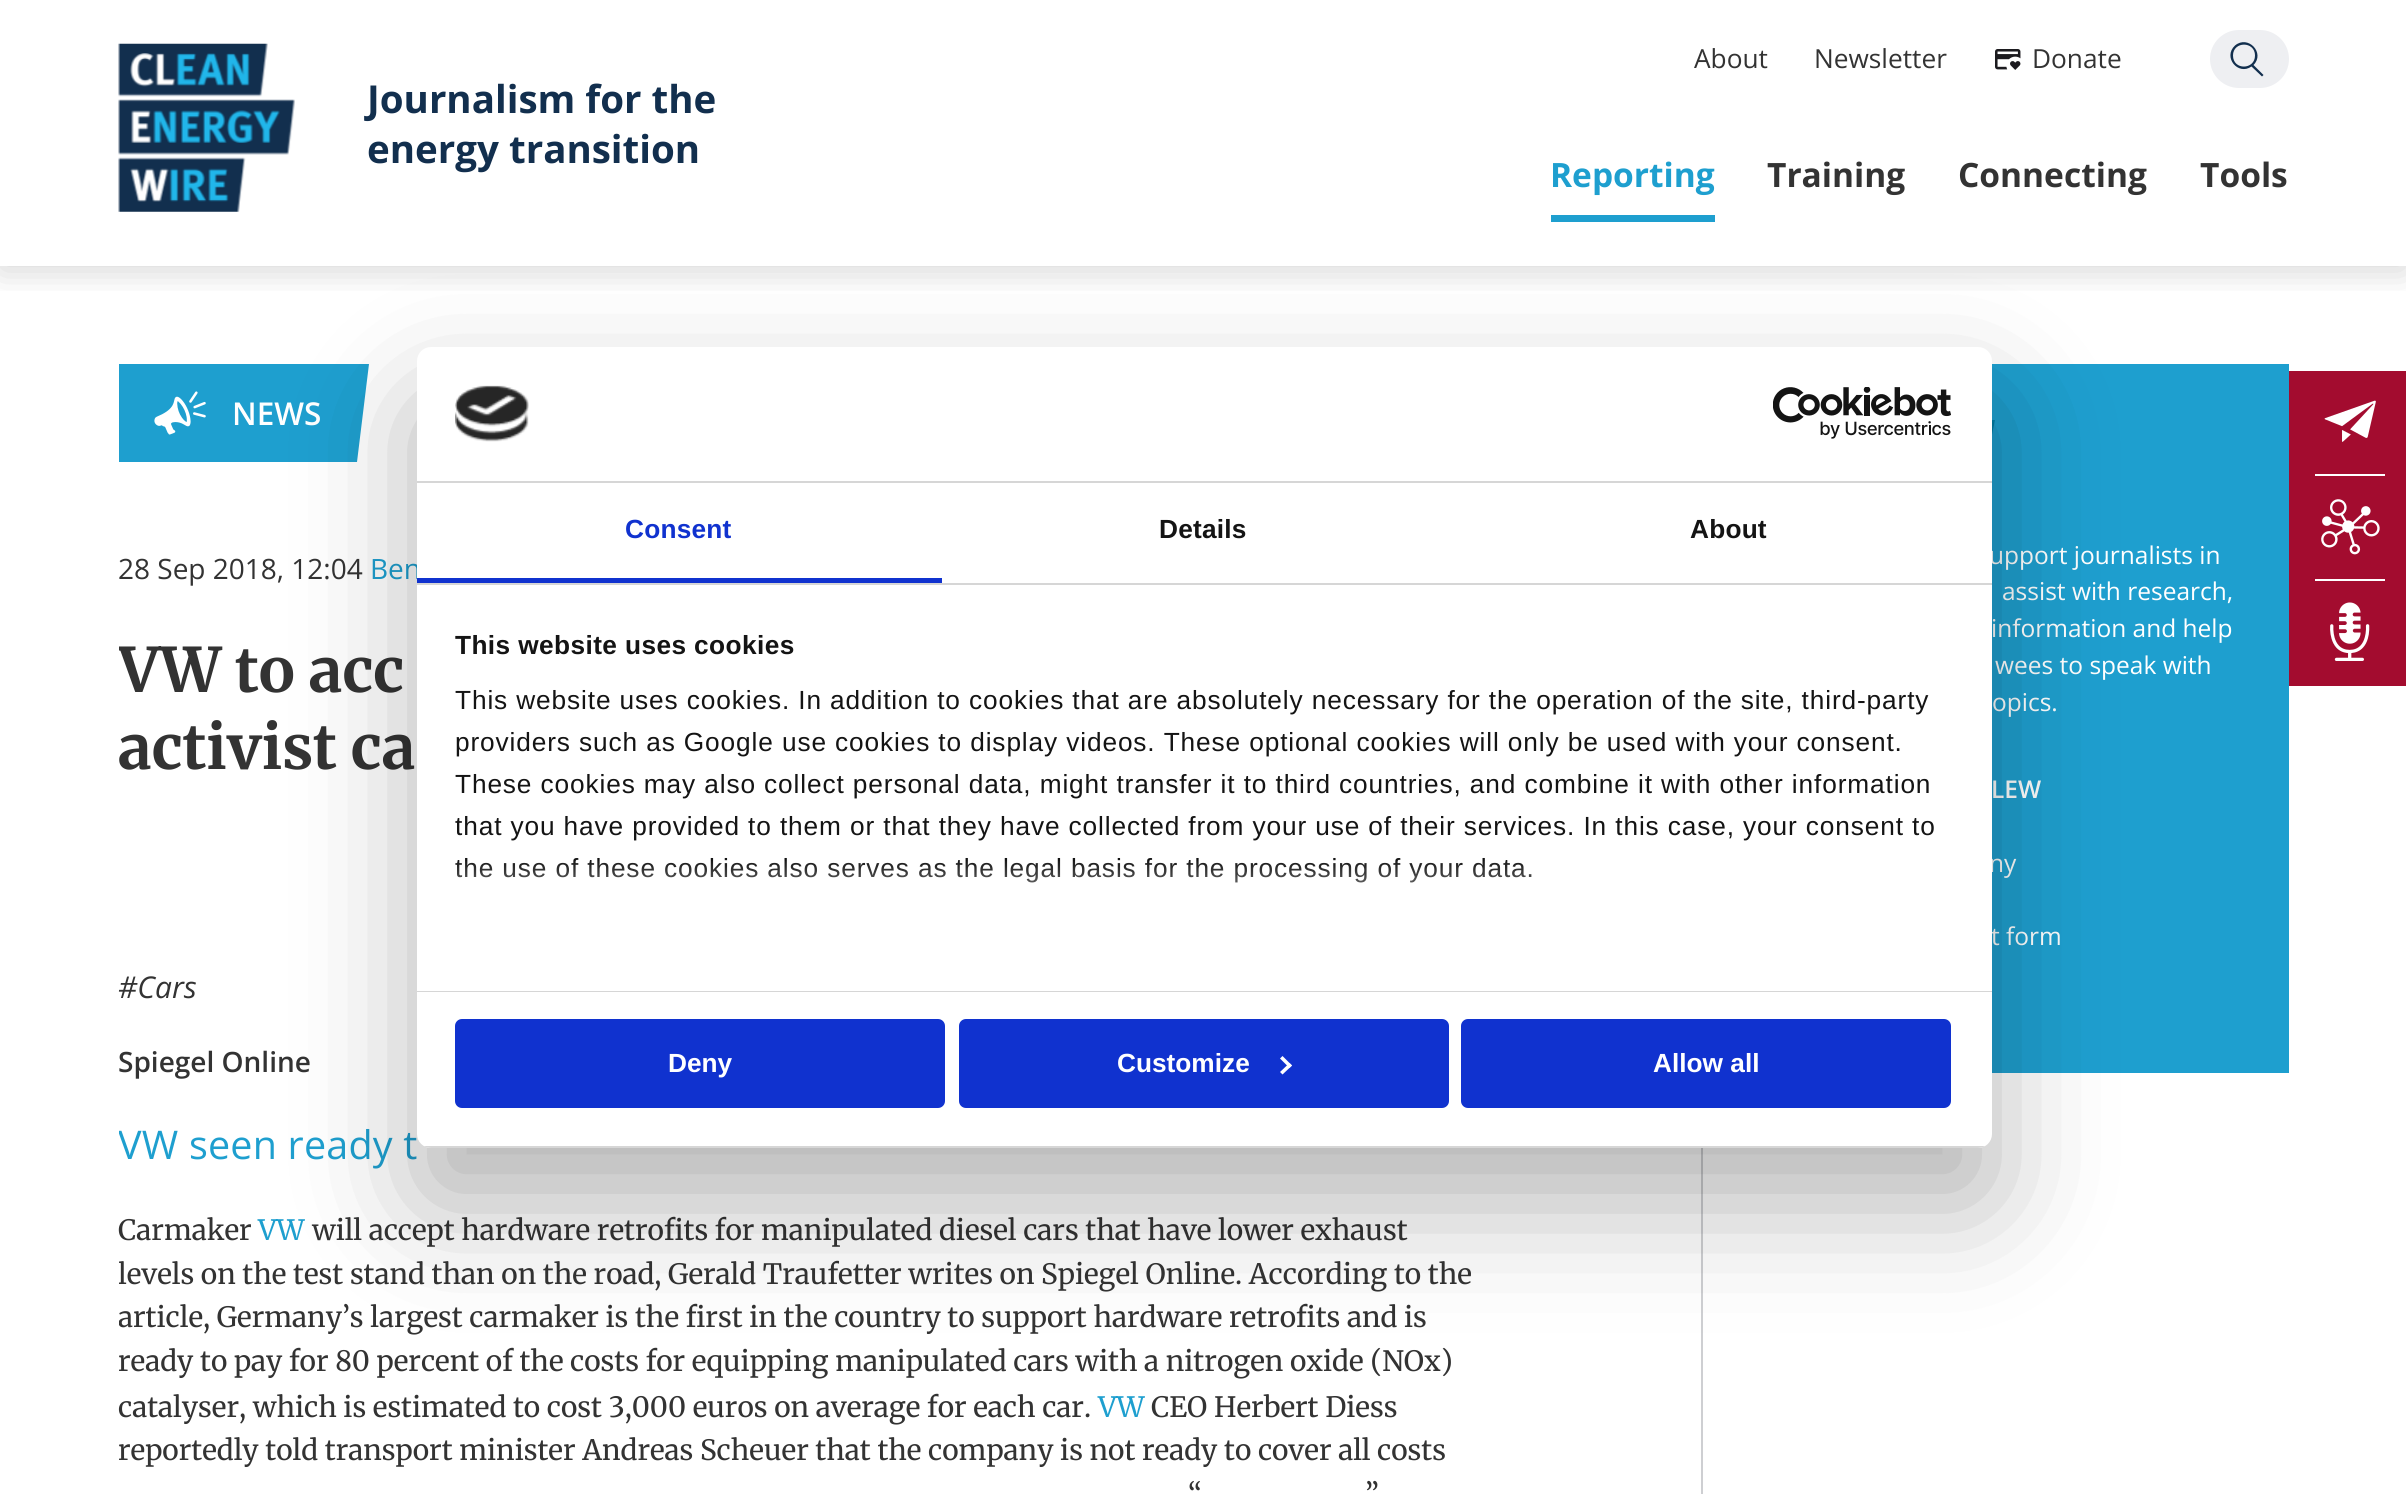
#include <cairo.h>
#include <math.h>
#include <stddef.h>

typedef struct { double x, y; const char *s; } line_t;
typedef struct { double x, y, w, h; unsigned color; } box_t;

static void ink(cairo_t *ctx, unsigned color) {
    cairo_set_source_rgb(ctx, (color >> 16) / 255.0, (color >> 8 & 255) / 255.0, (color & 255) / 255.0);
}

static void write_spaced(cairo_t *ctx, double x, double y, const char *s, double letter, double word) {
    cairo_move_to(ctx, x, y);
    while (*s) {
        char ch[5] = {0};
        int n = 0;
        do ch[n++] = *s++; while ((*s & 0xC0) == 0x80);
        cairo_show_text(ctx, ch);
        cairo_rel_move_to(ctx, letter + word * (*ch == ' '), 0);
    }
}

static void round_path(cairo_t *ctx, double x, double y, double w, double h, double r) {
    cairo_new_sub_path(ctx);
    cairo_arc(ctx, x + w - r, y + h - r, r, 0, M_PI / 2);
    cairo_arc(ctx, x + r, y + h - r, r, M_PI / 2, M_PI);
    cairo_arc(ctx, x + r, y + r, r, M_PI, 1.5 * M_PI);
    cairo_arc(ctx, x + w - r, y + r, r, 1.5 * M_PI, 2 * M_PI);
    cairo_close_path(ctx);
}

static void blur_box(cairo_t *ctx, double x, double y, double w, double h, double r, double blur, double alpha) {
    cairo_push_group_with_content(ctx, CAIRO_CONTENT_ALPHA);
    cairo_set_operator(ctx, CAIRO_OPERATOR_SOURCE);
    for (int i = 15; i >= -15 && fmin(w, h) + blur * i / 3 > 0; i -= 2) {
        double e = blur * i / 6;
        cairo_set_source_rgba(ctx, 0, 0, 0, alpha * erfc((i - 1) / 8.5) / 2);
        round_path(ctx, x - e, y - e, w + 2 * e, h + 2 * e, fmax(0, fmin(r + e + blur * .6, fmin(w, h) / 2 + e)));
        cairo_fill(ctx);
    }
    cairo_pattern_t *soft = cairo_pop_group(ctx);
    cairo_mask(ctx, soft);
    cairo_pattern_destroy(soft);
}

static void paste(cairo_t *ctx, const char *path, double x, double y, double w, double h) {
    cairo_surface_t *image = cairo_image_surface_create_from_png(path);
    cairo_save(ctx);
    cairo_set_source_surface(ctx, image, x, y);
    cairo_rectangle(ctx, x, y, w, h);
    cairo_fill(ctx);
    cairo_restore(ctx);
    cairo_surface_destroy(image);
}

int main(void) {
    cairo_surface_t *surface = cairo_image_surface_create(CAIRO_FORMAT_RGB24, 2406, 1494);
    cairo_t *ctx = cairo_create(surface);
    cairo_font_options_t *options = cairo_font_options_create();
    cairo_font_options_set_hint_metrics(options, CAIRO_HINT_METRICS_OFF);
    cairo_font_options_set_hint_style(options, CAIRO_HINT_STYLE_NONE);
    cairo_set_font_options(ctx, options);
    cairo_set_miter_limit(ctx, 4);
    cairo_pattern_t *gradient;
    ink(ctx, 0xFFFFFF);
    cairo_paint(ctx);
    cairo_save(ctx);
    cairo_rectangle(ctx, 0, 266, 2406, 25);
    cairo_clip(ctx);
    ink(ctx, 0x000000);
    blur_box(ctx, 0, 4, 2406, 266, 0, 17.5, 0.17);
    cairo_restore(ctx);
    paste(ctx, "media/1.png", 118, 43, 177, 169);
    cairo_select_font_face(ctx, "Open Sans", CAIRO_FONT_SLANT_NORMAL, CAIRO_FONT_WEIGHT_BOLD);
    cairo_set_font_size(ctx, 38.5);
    ink(ctx, 0x122F4E);
    cairo_move_to(ctx, 367, 113);
    cairo_show_text(ctx, "Journalism for the");
    cairo_move_to(ctx, 367, 163);
    cairo_show_text(ctx, "energy transition");
    cairo_select_font_face(ctx, "Open Sans", CAIRO_FONT_SLANT_NORMAL, CAIRO_FONT_WEIGHT_NORMAL);
    cairo_set_font_size(ctx, 26.25);
    ink(ctx, 0x333333);
    cairo_move_to(ctx, 1694, 68);
    cairo_show_text(ctx, "About");
    cairo_move_to(ctx, 1814, 68);
    cairo_show_text(ctx, "Newsletter");
    paste(ctx, "media/2.png", 1995, 49, 26, 21);
    cairo_move_to(ctx, 2032, 68);
    cairo_show_text(ctx, "Donate");
    ink(ctx, 0xEEEFF2);
    round_path(ctx, 2210, 30, 79, 58, 29);
    cairo_fill(ctx);
    ink(ctx, 0x122F4E);
    cairo_new_path(ctx);
    cairo_move_to(ctx, 2263.5, 75);
    cairo_line_to(ctx, 2253.5, 65);
    cairo_curve_to(ctx, 2265.5, 53, 2248, 34.5, 2235, 45.5);
    cairo_curve_to(ctx, 2222.5, 57, 2238, 76, 2251.5, 66.5);
    cairo_line_to(ctx, 2262, 76.5);
    cairo_close_path(ctx);
    cairo_move_to(ctx, 2233, 55.5);
    cairo_curve_to(ctx, 2233, 41, 2255, 41, 2255, 55.5);
    cairo_curve_to(ctx, 2255, 70, 2233, 70.5, 2233, 55.5);
    cairo_close_path(ctx);
    cairo_fill(ctx);
    cairo_select_font_face(ctx, "Open Sans", CAIRO_FONT_SLANT_NORMAL, CAIRO_FONT_WEIGHT_BOLD);
    cairo_set_font_size(ctx, 33.5);
    ink(ctx, 0x1E9FCF);
    cairo_move_to(ctx, 1550, 187);
    cairo_show_text(ctx, "Reporting");
    cairo_rectangle(ctx, 1551, 215, 164, 7);
    cairo_fill(ctx);
    ink(ctx, 0x333333);
    {
        static const line_t items[] = {
            {1767, 187, "Training"},
            {1958, 187, "Connecting"},
            {2200, 187, "Tools"},
        };
        for (size_t i = 0; i < sizeof items / sizeof *items; i++) {
            cairo_move_to(ctx, items[i].x, items[i].y);
            cairo_show_text(ctx, items[i].s);
        }
    }
    ink(ctx, 0x1E9FCF);
    cairo_rectangle(ctx, 119, 364, 238, 98);
    cairo_fill(ctx);
    paste(ctx, "media/3.png", 154, 391, 52, 44);
    cairo_select_font_face(ctx, "Open Sans SemiBold", CAIRO_FONT_SLANT_NORMAL, CAIRO_FONT_WEIGHT_NORMAL);
    cairo_set_font_size(ctx, 31.5);
    ink(ctx, 0xFFFFFF);
    cairo_move_to(ctx, 232, 425);
    cairo_show_text(ctx, "NEWS");
    ink(ctx, 0x1E9FCF);
    cairo_new_path(ctx);
    cairo_move_to(ctx, 357, 462);
    cairo_line_to(ctx, 357, 364);
    cairo_line_to(ctx, 369, 364);
    cairo_close_path(ctx);
    cairo_fill(ctx);
    cairo_select_font_face(ctx, "Open Sans", CAIRO_FONT_SLANT_NORMAL, CAIRO_FONT_WEIGHT_NORMAL);
    cairo_set_font_size(ctx, 28);
    ink(ctx, 0x333333);
    cairo_move_to(ctx, 118, 579);
    cairo_show_text(ctx, "28 Sep 2018, 12:04");
    ink(ctx, 0x1E9FCF);
    cairo_move_to(ctx, 370, 579);
    cairo_show_text(ctx, "Ben");
    cairo_save(ctx);
    cairo_rectangle(ctx, 119, 266, 2170, 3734);
    cairo_clip(ctx);
    cairo_select_font_face(ctx, "Merriweather", CAIRO_FONT_SLANT_NORMAL, CAIRO_FONT_WEIGHT_BOLD);
    cairo_set_font_size(ctx, 61.25);
    ink(ctx, 0x333333);
    cairo_move_to(ctx, 118, 692);
    cairo_show_text(ctx, "VW to acc");
    cairo_restore(ctx);
    cairo_select_font_face(ctx, "Merriweather", CAIRO_FONT_SLANT_NORMAL, CAIRO_FONT_WEIGHT_BOLD);
    cairo_set_font_size(ctx, 61.25);
    ink(ctx, 0x333333);
    cairo_move_to(ctx, 118, 769);
    cairo_show_text(ctx, "activist ca");
    cairo_select_font_face(ctx, "Open Sans", CAIRO_FONT_SLANT_ITALIC, CAIRO_FONT_WEIGHT_NORMAL);
    cairo_set_font_size(ctx, 30);
    cairo_move_to(ctx, 118, 998);
    cairo_show_text(ctx, "#Cars");
    cairo_select_font_face(ctx, "Open Sans SemiBold", CAIRO_FONT_SLANT_NORMAL, CAIRO_FONT_WEIGHT_NORMAL);
    cairo_set_font_size(ctx, 28);
    cairo_move_to(ctx, 118, 1072);
    cairo_show_text(ctx, "Spiegel Online");
    cairo_save(ctx);
    cairo_rectangle(ctx, 119, 266, 2170, 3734);
    cairo_clip(ctx);
    cairo_select_font_face(ctx, "Open Sans", CAIRO_FONT_SLANT_NORMAL, CAIRO_FONT_WEIGHT_NORMAL);
    cairo_set_font_size(ctx, 39.5);
    ink(ctx, 0x1E9FCF);
    write_spaced(ctx, 118, 1159, "VW seen ready t", 0.2, 0);
    cairo_restore(ctx);
    cairo_select_font_face(ctx, "Merriweather", CAIRO_FONT_SLANT_NORMAL, CAIRO_FONT_WEIGHT_NORMAL);
    cairo_move_to(ctx, 118, 1240);
    cairo_show_text(ctx, "Carmaker");
    ink(ctx, 0x1E9FCF);
    cairo_move_to(ctx, 258, 1240);
    cairo_show_text(ctx, "VW");
    ink(ctx, 0x333333);
    cairo_move_to(ctx, 312, 1240);
    cairo_show_text(ctx, "will accept hardware retrofits for manipulated diesel cars that have lower exhaust");
    cairo_save(ctx);
    cairo_rectangle(ctx, 119, 266, 2170, 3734);
    cairo_clip(ctx);
    cairo_move_to(ctx, 118, 1284);
    cairo_show_text(ctx, "levels on the test stand than on the road, Gerald Traufetter writes on Spiegel Online. According to the");
    cairo_move_to(ctx, 118, 1327);
    cairo_show_text(ctx, "article, Germany’s largest carmaker is the first in the country to support hardware retrofits and is");
    cairo_restore(ctx);
    cairo_move_to(ctx, 118, 1371);
    cairo_show_text(ctx, "ready to pay for 80 percent of the costs for equipping manipulated cars with a nitrogen oxide (NOx)");
    cairo_move_to(ctx, 118, 1417);
    cairo_show_text(ctx, "catalyser, which is estimated to cost 3,000 euros on average for each car.");
    ink(ctx, 0x1E9FCF);
    cairo_move_to(ctx, 1098, 1417);
    cairo_show_text(ctx, "VW");
    ink(ctx, 0x333333);
    {
        static const line_t items[] = {
            {1151, 1417, "CEO Herbert Diess"},
            {118, 1460, "reportedly told transport minister Andreas Scheuer that the company is not ready to cover all costs"},
            {1188, 1504, "“"},
            {1365, 1504, "”"},
        };
        for (size_t i = 0; i < sizeof items / sizeof *items; i++) {
            cairo_move_to(ctx, items[i].x, items[i].y);
            cairo_show_text(ctx, items[i].s);
        }
    }
    {
        static const box_t items[] = {
            {1701, 1148, 2, 346, 0xCECFD2},
            {1992, 364, 297, 709, 0x1E9FCF},
            {1992, 420, 3, 15, 0x007FA8},
        };
        for (size_t i = 0; i < sizeof items / sizeof *items; i++) {
            ink(ctx, items[i].color);
            cairo_rectangle(ctx, items[i].x, items[i].y, items[i].w, items[i].h);
            cairo_fill(ctx);
        }
    }
    ink(ctx, 0x1E9FCF);
    cairo_new_path(ctx);
    cairo_move_to(ctx, 1995, 420);
    cairo_line_to(ctx, 2035, 420);
    cairo_line_to(ctx, 2018, 509);
    cairo_line_to(ctx, 1977, 509);
    cairo_close_path(ctx);
    cairo_fill(ctx);
    cairo_select_font_face(ctx, "Open Sans", CAIRO_FONT_SLANT_NORMAL, CAIRO_FONT_WEIGHT_NORMAL);
    cairo_set_font_size(ctx, 24.5);
    ink(ctx, 0xFFFFFF);
    {
        static const line_t items[] = {
            {1989, 564, "upport journalists in"},
            {2002, 600, "assist with research,"},
            {1991, 637, "information and help"},
            {1995, 674, "wees to speak with"},
            {1992, 711, "opics."},
        };
        for (size_t i = 0; i < sizeof items / sizeof *items; i++) {
            cairo_move_to(ctx, items[i].x, items[i].y);
            cairo_show_text(ctx, items[i].s);
        }
    }
    cairo_select_font_face(ctx, "Open Sans SemiBold", CAIRO_FONT_SLANT_NORMAL, CAIRO_FONT_WEIGHT_NORMAL);
    cairo_move_to(ctx, 1991, 798);
    cairo_show_text(ctx, "LEW");
    cairo_select_font_face(ctx, "Open Sans", CAIRO_FONT_SLANT_NORMAL, CAIRO_FONT_WEIGHT_NORMAL);
    cairo_move_to(ctx, 1989, 872);
    cairo_show_text(ctx, "ny");
    cairo_move_to(ctx, 1991, 945);
    cairo_show_text(ctx, "t form");
    ink(ctx, 0xA30C2F);
    cairo_rectangle(ctx, 2289, 371, 117, 315);
    cairo_fill(ctx);
    ink(ctx, 0xFFFFFF);
    cairo_rectangle(ctx, 2315, 474, 70, 2);
    cairo_fill(ctx);
    paste(ctx, "media/4.png", 2324, 400, 52, 42);
    cairo_rectangle(ctx, 2315, 579, 70, 2);
    cairo_fill(ctx);
    paste(ctx, "media/5.png", 2321, 499, 59, 56);
    paste(ctx, "media/6.png", 2330, 602, 40, 59);
    ink(ctx, 0x000000);
    blur_box(ctx, 417, 403, 1575, 801, 14, 59.5, 0.3);
    ink(ctx, 0xFFFFFF);
    round_path(ctx, 417, 347, 1575, 801, 14);
    cairo_fill(ctx);
    ink(ctx, 0xD6D6D6);
    cairo_rectangle(ctx, 417, 481, 1575, 2);
    cairo_fill(ctx);
    paste(ctx, "media/7.png", 455, 385, 74, 57);
    paste(ctx, "media/8.png", 1773, 387, 178, 52);
    cairo_rectangle(ctx, 417, 583, 1575, 2);
    cairo_fill(ctx);
    ink(ctx, 0x1032CF);
    cairo_rectangle(ctx, 417, 578, 525, 5);
    cairo_fill(ctx);
    cairo_select_font_face(ctx, "Liberation Sans", CAIRO_FONT_SLANT_NORMAL, CAIRO_FONT_WEIGHT_BOLD);
    cairo_set_font_size(ctx, 26.25);
    write_spaced(ctx, 625, 538, "Consent", 0.2, 0);
    ink(ctx, 0x141414);
    write_spaced(ctx, 1159, 538, "Details", 0.2, 0);
    write_spaced(ctx, 1690, 538, "About", 0.2, 0);
    ink(ctx, 0xD6D6D6);
    cairo_rectangle(ctx, 417, 991, 1575, 1);
    cairo_fill(ctx);
    ink(ctx, 0x141414);
    write_spaced(ctx, 455, 654, "This website uses cookies", 0.4, 0);
    cairo_select_font_face(ctx, "Liberation Sans", CAIRO_FONT_SLANT_NORMAL, CAIRO_FONT_WEIGHT_NORMAL);
    {
        static const line_t items[] = {
            {455, 709, "This website uses cookies. In addition to cookies that are absolutely necessary for the operation of the site, third-party"},
            {455, 751, "providers such as Google use cookies to display videos. These optional cookies will only be used with your consent."},
            {455, 793, "These cookies may also collect personal data, might transfer it to third countries, and combine it with other information"},
            {455, 835, "that you have provided to them or that they have collected from your use of their services. In this case, your consent to"},
            {455, 877, "the use of these cookies also serves as the legal basis for the processing of your data."},
        };
        for (size_t i = 0; i < sizeof items / sizeof *items; i++) {
            write_spaced(ctx, items[i].x, items[i].y, items[i].s, 0.88, 0);
        }
    }
    gradient = cairo_pattern_create_linear(1186, 990, 1186, 859);
    cairo_pattern_add_color_stop_rgba(gradient, 0, 1, 1, 1, 1);
    cairo_pattern_add_color_stop_rgba(gradient, 0.5, 1, 1, 1, 0.8);
    cairo_pattern_add_color_stop_rgba(gradient, 1, 1, 1, 1, 0);
    cairo_set_source(ctx, gradient);
    cairo_pattern_destroy(gradient);
    cairo_rectangle(ctx, 455, 861, 1077, 22);
    cairo_fill(ctx);
    cairo_save(ctx);
    round_path(ctx, 417, 347, 1575, 801, 14);
    cairo_clip(ctx);
    ink(ctx, 0xD6D6D6);
    cairo_rectangle(ctx, 417, 1146, 1575, 2);
    cairo_fill(ctx);
    cairo_restore(ctx);
    ink(ctx, 0x1032CF);
    round_path(ctx, 457, 1021, 486, 85, 5);
    cairo_fill_preserve(ctx);
    cairo_set_line_width(ctx, 4);
    cairo_stroke(ctx);
    cairo_select_font_face(ctx, "Liberation Sans", CAIRO_FONT_SLANT_NORMAL, CAIRO_FONT_WEIGHT_BOLD);
    ink(ctx, 0xFFFFFF);
    cairo_move_to(ctx, 668, 1072);
    cairo_show_text(ctx, "Deny");
    ink(ctx, 0x1032CF);
    round_path(ctx, 961, 1021, 486, 85, 5);
    cairo_fill_preserve(ctx);
    cairo_stroke(ctx);
    ink(ctx, 0xFFFFFF);
    cairo_move_to(ctx, 1117, 1072);
    cairo_show_text(ctx, "Customize");
    cairo_new_path(ctx);
    cairo_move_to(ctx, 1282.5, 1056);
    cairo_line_to(ctx, 1292, 1065.5);
    cairo_line_to(ctx, 1289.5, 1068);
    cairo_line_to(ctx, 1280, 1058.5);
    cairo_close_path(ctx);
    cairo_fill(ctx);
    cairo_new_path(ctx);
    cairo_move_to(ctx, 1289.5, 1063);
    cairo_line_to(ctx, 1292, 1065.5);
    cairo_line_to(ctx, 1282.5, 1074.5);
    cairo_line_to(ctx, 1280, 1072);
    cairo_close_path(ctx);
    cairo_fill(ctx);
    ink(ctx, 0x1032CF);
    round_path(ctx, 1463, 1021, 486, 85, 5);
    cairo_fill_preserve(ctx);
    cairo_stroke(ctx);
    ink(ctx, 0xFFFFFF);
    cairo_move_to(ctx, 1653, 1072);
    cairo_show_text(ctx, "Allow all");
    cairo_surface_write_to_png(surface, "image.png");
    cairo_font_options_destroy(options);
    cairo_destroy(ctx);
    cairo_surface_destroy(surface);
    return 0;
}
